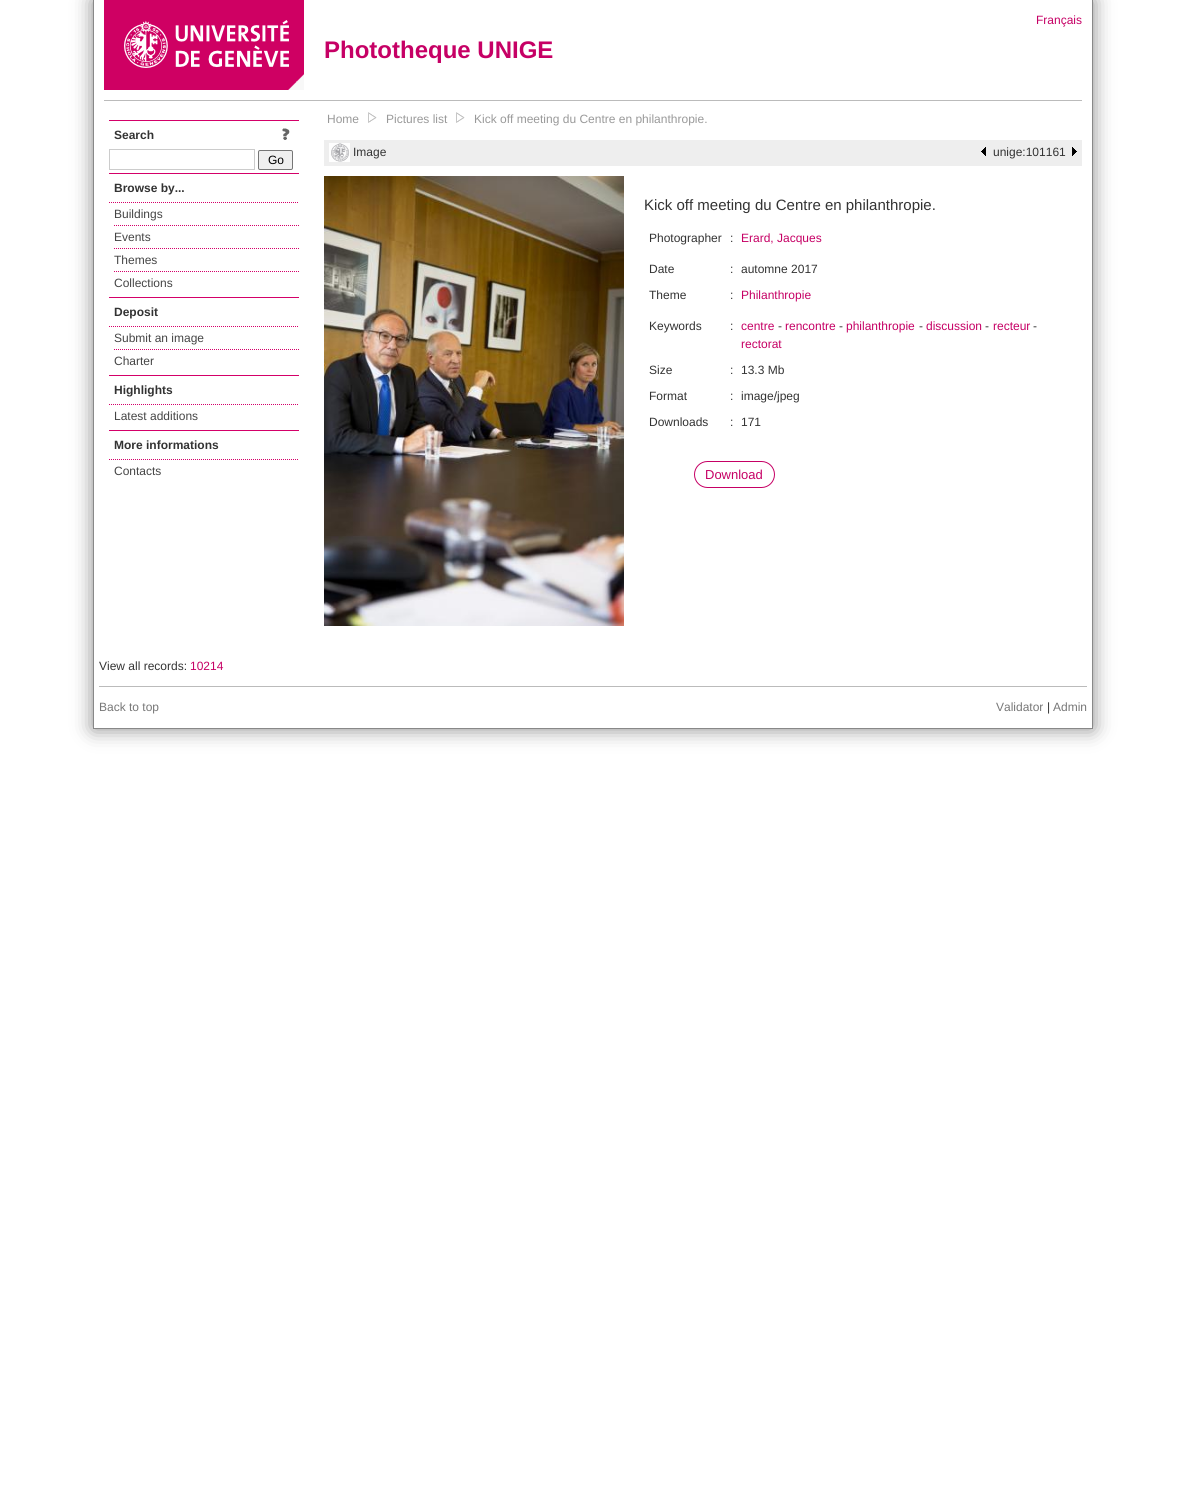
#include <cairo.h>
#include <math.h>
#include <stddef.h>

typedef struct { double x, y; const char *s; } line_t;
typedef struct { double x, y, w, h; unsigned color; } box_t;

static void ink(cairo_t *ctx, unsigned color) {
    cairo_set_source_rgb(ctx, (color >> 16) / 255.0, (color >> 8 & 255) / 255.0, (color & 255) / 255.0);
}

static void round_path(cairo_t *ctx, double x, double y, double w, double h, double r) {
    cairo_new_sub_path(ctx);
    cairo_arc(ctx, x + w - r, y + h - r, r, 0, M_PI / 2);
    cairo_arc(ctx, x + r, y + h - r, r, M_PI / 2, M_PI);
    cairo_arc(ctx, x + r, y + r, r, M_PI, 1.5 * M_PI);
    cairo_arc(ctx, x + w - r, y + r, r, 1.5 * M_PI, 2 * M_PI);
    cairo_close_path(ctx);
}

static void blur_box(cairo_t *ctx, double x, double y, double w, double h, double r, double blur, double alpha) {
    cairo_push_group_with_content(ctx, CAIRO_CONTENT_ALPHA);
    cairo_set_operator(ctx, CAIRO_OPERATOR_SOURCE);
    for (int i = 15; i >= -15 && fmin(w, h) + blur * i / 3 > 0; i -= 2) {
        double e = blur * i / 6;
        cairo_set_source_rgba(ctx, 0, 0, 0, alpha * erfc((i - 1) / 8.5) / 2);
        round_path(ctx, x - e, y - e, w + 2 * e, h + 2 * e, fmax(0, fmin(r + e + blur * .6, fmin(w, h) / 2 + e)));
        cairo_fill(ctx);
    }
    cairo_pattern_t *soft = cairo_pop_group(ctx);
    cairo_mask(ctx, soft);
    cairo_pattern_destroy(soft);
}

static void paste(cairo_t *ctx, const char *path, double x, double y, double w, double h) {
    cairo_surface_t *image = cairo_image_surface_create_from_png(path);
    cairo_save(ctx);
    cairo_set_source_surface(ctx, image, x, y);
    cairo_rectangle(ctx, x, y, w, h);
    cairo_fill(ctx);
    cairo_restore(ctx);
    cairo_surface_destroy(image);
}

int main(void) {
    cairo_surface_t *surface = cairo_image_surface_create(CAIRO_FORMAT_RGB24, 1186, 1508);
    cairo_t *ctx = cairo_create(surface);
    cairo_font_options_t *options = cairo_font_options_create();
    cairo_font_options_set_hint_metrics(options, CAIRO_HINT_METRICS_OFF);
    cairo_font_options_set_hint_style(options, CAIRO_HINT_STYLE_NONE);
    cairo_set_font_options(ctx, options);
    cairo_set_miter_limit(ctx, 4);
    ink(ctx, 0xFFFFFF);
    cairo_paint(ctx);
    cairo_save(ctx);
    cairo_set_fill_rule(ctx, CAIRO_FILL_RULE_EVEN_ODD);
    cairo_new_path(ctx);
    cairo_move_to(ctx, 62, 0);
    cairo_line_to(ctx, 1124, 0);
    cairo_line_to(ctx, 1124, 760);
    cairo_line_to(ctx, 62, 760);
    cairo_close_path(ctx);
    cairo_move_to(ctx, 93, 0);
    cairo_line_to(ctx, 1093, 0);
    cairo_line_to(ctx, 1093, 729);
    cairo_line_to(ctx, 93, 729);
    cairo_close_path(ctx);
    cairo_clip(ctx);
    ink(ctx, 0x888888);
    blur_box(ctx, 93, 0, 1000, 729, 0, 10, 1);
    cairo_restore(ctx);
    {
        static const box_t items[] = {
            {1092, 0, 1, 729, 0x888888},
            {93, 0, 1, 641, 0x888888},
            {104, 0, 200, 90, 0xCF0063},
        };
        for (size_t i = 0; i < sizeof items / sizeof *items; i++) {
            ink(ctx, items[i].color);
            cairo_rectangle(ctx, items[i].x, items[i].y, items[i].w, items[i].h);
            cairo_fill(ctx);
        }
    }
    paste(ctx, "media/1.png", 288, 74, 16, 16);
    paste(ctx, "media/2.png", 124, 20, 165, 48);
    cairo_select_font_face(ctx, "Liberation Sans", CAIRO_FONT_SLANT_NORMAL, CAIRO_FONT_WEIGHT_NORMAL);
    cairo_set_font_size(ctx, 12);
    ink(ctx, 0xC60065);
    cairo_move_to(ctx, 1036, 24);
    cairo_show_text(ctx, "Français");
    cairo_select_font_face(ctx, "Liberation Sans", CAIRO_FONT_SLANT_NORMAL, CAIRO_FONT_WEIGHT_BOLD);
    cairo_set_font_size(ctx, 24);
    cairo_move_to(ctx, 324, 58);
    cairo_show_text(ctx, "Phototheque UNIGE");
    ink(ctx, 0xBBBBBB);
    cairo_rectangle(ctx, 104, 100, 978, 1);
    cairo_fill(ctx);
    ink(ctx, 0xD40069);
    cairo_rectangle(ctx, 109, 120, 190, 1);
    cairo_fill(ctx);
    cairo_set_font_size(ctx, 12);
    ink(ctx, 0x333333);
    cairo_move_to(ctx, 114, 139);
    cairo_show_text(ctx, "Search");
    paste(ctx, "media/3.png", 282, 128, 8, 12);
    cairo_rectangle(ctx, 109.5, 149.5, 145, 20);
    ink(ctx, 0xCCCCCC);
    cairo_set_line_width(ctx, 1);
    cairo_stroke(ctx);
    ink(ctx, 0xEFEFEF);
    round_path(ctx, 258.5, 150.5, 34, 19, 1.5);
    cairo_fill_preserve(ctx);
    ink(ctx, 0x767676);
    cairo_stroke(ctx);
    cairo_select_font_face(ctx, "Liberation Sans", CAIRO_FONT_SLANT_NORMAL, CAIRO_FONT_WEIGHT_NORMAL);
    ink(ctx, 0x000000);
    cairo_move_to(ctx, 268, 164);
    cairo_show_text(ctx, "Go");
    ink(ctx, 0xD40069);
    cairo_rectangle(ctx, 109, 173, 190, 1);
    cairo_fill(ctx);
    cairo_new_path(ctx);
    cairo_move_to(ctx, 109, 202.5);
    cairo_line_to(ctx, 299, 202.5);
    cairo_set_dash(ctx, (double[]){1, 1}, 2, 0);
    cairo_stroke(ctx);
    cairo_select_font_face(ctx, "Liberation Sans", CAIRO_FONT_SLANT_NORMAL, CAIRO_FONT_WEIGHT_BOLD);
    ink(ctx, 0x333333);
    cairo_move_to(ctx, 114, 192);
    cairo_show_text(ctx, "Browse by...");
    cairo_new_path(ctx);
    cairo_move_to(ctx, 114, 225.5);
    cairo_line_to(ctx, 299, 225.5);
    ink(ctx, 0xD40069);
    cairo_stroke(ctx);
    cairo_select_font_face(ctx, "Liberation Sans", CAIRO_FONT_SLANT_NORMAL, CAIRO_FONT_WEIGHT_NORMAL);
    ink(ctx, 0x454545);
    cairo_move_to(ctx, 114, 218);
    cairo_show_text(ctx, "Buildings");
    cairo_new_path(ctx);
    cairo_move_to(ctx, 114, 248.5);
    cairo_line_to(ctx, 299, 248.5);
    ink(ctx, 0xD40069);
    cairo_stroke(ctx);
    ink(ctx, 0x454545);
    cairo_move_to(ctx, 114, 241);
    cairo_show_text(ctx, "Events");
    cairo_new_path(ctx);
    cairo_move_to(ctx, 114, 271.5);
    cairo_line_to(ctx, 299, 271.5);
    ink(ctx, 0xD40069);
    cairo_stroke(ctx);
    ink(ctx, 0x454545);
    cairo_move_to(ctx, 114, 264);
    cairo_show_text(ctx, "Themes");
    cairo_move_to(ctx, 114, 287);
    cairo_show_text(ctx, "Collections");
    ink(ctx, 0xD40069);
    cairo_rectangle(ctx, 109, 297, 190, 1);
    cairo_fill(ctx);
    cairo_new_path(ctx);
    cairo_move_to(ctx, 109, 326.5);
    cairo_line_to(ctx, 299, 326.5);
    cairo_stroke(ctx);
    cairo_select_font_face(ctx, "Liberation Sans", CAIRO_FONT_SLANT_NORMAL, CAIRO_FONT_WEIGHT_BOLD);
    ink(ctx, 0x333333);
    cairo_move_to(ctx, 114, 316);
    cairo_show_text(ctx, "Deposit");
    cairo_new_path(ctx);
    cairo_move_to(ctx, 114, 349.5);
    cairo_line_to(ctx, 299, 349.5);
    ink(ctx, 0xD40069);
    cairo_stroke(ctx);
    cairo_select_font_face(ctx, "Liberation Sans", CAIRO_FONT_SLANT_NORMAL, CAIRO_FONT_WEIGHT_NORMAL);
    ink(ctx, 0x454545);
    cairo_move_to(ctx, 114, 342);
    cairo_show_text(ctx, "Submit an image");
    cairo_move_to(ctx, 114, 365);
    cairo_show_text(ctx, "Charter");
    ink(ctx, 0xD40069);
    cairo_rectangle(ctx, 109, 375, 190, 1);
    cairo_fill(ctx);
    cairo_new_path(ctx);
    cairo_move_to(ctx, 109, 404.5);
    cairo_line_to(ctx, 299, 404.5);
    cairo_stroke(ctx);
    cairo_select_font_face(ctx, "Liberation Sans", CAIRO_FONT_SLANT_NORMAL, CAIRO_FONT_WEIGHT_BOLD);
    ink(ctx, 0x333333);
    cairo_move_to(ctx, 114, 394);
    cairo_show_text(ctx, "Highlights");
    cairo_select_font_face(ctx, "Liberation Sans", CAIRO_FONT_SLANT_NORMAL, CAIRO_FONT_WEIGHT_NORMAL);
    ink(ctx, 0x454545);
    cairo_move_to(ctx, 114, 420);
    cairo_show_text(ctx, "Latest additions");
    ink(ctx, 0xD40069);
    cairo_rectangle(ctx, 109, 430, 190, 1);
    cairo_fill(ctx);
    cairo_new_path(ctx);
    cairo_move_to(ctx, 109, 459.5);
    cairo_line_to(ctx, 299, 459.5);
    cairo_stroke(ctx);
    cairo_select_font_face(ctx, "Liberation Sans", CAIRO_FONT_SLANT_NORMAL, CAIRO_FONT_WEIGHT_BOLD);
    ink(ctx, 0x333333);
    cairo_move_to(ctx, 114, 449);
    cairo_show_text(ctx, "More informations");
    cairo_select_font_face(ctx, "Liberation Sans", CAIRO_FONT_SLANT_NORMAL, CAIRO_FONT_WEIGHT_NORMAL);
    ink(ctx, 0x454545);
    cairo_move_to(ctx, 114, 475);
    cairo_show_text(ctx, "Contacts");
    ink(ctx, 0x999999);
    cairo_move_to(ctx, 327, 123);
    cairo_show_text(ctx, "Home");
    paste(ctx, "media/4.png", 368, 112, 9, 11);
    cairo_move_to(ctx, 386, 123);
    cairo_show_text(ctx, "Pictures list");
    paste(ctx, "media/4.png", 456, 112, 9, 11);
    cairo_move_to(ctx, 474, 123);
    cairo_show_text(ctx, "Kick off meeting du Centre en philanthropie.");
    ink(ctx, 0xEEEEEE);
    cairo_rectangle(ctx, 324, 140, 758, 26);
    cairo_fill(ctx);
    paste(ctx, "media/5.png", 329, 143, 21, 19);
    ink(ctx, 0x333333);
    cairo_move_to(ctx, 353, 156);
    cairo_show_text(ctx, "Image");
    paste(ctx, "media/6.png", 981, 147, 5, 9);
    cairo_move_to(ctx, 993, 156);
    cairo_show_text(ctx, "unige:101161");
    paste(ctx, "media/7.png", 1072, 147, 5, 9);
    paste(ctx, "media/8.png", 324, 176, 300, 450);
    cairo_set_font_size(ctx, 15);
    cairo_move_to(ctx, 644, 210);
    cairo_show_text(ctx, "Kick off meeting du Centre en philanthropie.");
    cairo_set_font_size(ctx, 12);
    cairo_move_to(ctx, 649, 242);
    cairo_show_text(ctx, "Photographer");
    cairo_move_to(ctx, 730, 242);
    cairo_show_text(ctx, ":");
    ink(ctx, 0xC60065);
    cairo_move_to(ctx, 741, 242);
    cairo_show_text(ctx, "Erard, Jacques");
    ink(ctx, 0x333333);
    {
        static const line_t items[] = {
            {649, 273, "Date"},
            {730, 273, ":"},
            {741, 273, "automne 2017"},
            {649, 299, "Theme"},
            {730, 299, ":"},
        };
        for (size_t i = 0; i < sizeof items / sizeof *items; i++) {
            cairo_move_to(ctx, items[i].x, items[i].y);
            cairo_show_text(ctx, items[i].s);
        }
    }
    ink(ctx, 0xC60065);
    cairo_move_to(ctx, 741, 299);
    cairo_show_text(ctx, "Philanthropie");
    ink(ctx, 0x333333);
    cairo_move_to(ctx, 649, 330);
    cairo_show_text(ctx, "Keywords");
    cairo_move_to(ctx, 730, 330);
    cairo_show_text(ctx, ":");
    ink(ctx, 0xC60065);
    cairo_move_to(ctx, 741, 330);
    cairo_show_text(ctx, "centre");
    ink(ctx, 0x333333);
    cairo_move_to(ctx, 778, 330);
    cairo_show_text(ctx, "-");
    ink(ctx, 0xC60065);
    cairo_move_to(ctx, 785, 330);
    cairo_show_text(ctx, "rencontre");
    ink(ctx, 0x333333);
    cairo_move_to(ctx, 839, 330);
    cairo_show_text(ctx, "-");
    ink(ctx, 0xC60065);
    cairo_move_to(ctx, 846, 330);
    cairo_show_text(ctx, "philanthropie");
    ink(ctx, 0x333333);
    cairo_move_to(ctx, 919, 330);
    cairo_show_text(ctx, "-");
    ink(ctx, 0xC60065);
    cairo_move_to(ctx, 926, 330);
    cairo_show_text(ctx, "discussion");
    ink(ctx, 0x333333);
    cairo_move_to(ctx, 985, 330);
    cairo_show_text(ctx, "-");
    ink(ctx, 0xC60065);
    cairo_move_to(ctx, 993, 330);
    cairo_show_text(ctx, "recteur");
    ink(ctx, 0x333333);
    cairo_move_to(ctx, 1033, 330);
    cairo_show_text(ctx, "-");
    ink(ctx, 0xC60065);
    cairo_move_to(ctx, 741, 348);
    cairo_show_text(ctx, "rectorat");
    ink(ctx, 0x333333);
    {
        static const line_t items[] = {
            {649, 374, "Size"},
            {730, 374, ":"},
            {741, 374, "13.3 Mb"},
            {649, 400, "Format"},
            {730, 400, ":"},
            {741, 400, "image/jpeg"},
            {649, 426, "Downloads"},
            {730, 426, ":"},
            {741, 426, "171"},
        };
        for (size_t i = 0; i < sizeof items / sizeof *items; i++) {
            cairo_move_to(ctx, items[i].x, items[i].y);
            cairo_show_text(ctx, items[i].s);
        }
    }
    round_path(ctx, 694.5, 461.5, 80, 26, 13);
    ink(ctx, 0xC60065);
    cairo_set_dash(ctx, NULL, 0, 0);
    cairo_stroke(ctx);
    cairo_set_font_size(ctx, 13);
    cairo_move_to(ctx, 705, 479);
    cairo_show_text(ctx, "Download");
    {
        static const box_t items[] = {
            {93, 728, 1000, 1, 0x888888},
            {93, 641, 1, 88, 0x888888},
            {99, 686, 988, 1, 0xBBBBBB},
        };
        for (size_t i = 0; i < sizeof items / sizeof *items; i++) {
            ink(ctx, items[i].color);
            cairo_rectangle(ctx, items[i].x, items[i].y, items[i].w, items[i].h);
            cairo_fill(ctx);
        }
    }
    cairo_set_font_size(ctx, 12);
    ink(ctx, 0x333333);
    cairo_move_to(ctx, 99, 670);
    cairo_show_text(ctx, "View all records:");
    ink(ctx, 0xC60065);
    cairo_move_to(ctx, 190, 670);
    cairo_show_text(ctx, "10214");
    ink(ctx, 0x777777);
    cairo_move_to(ctx, 99, 711);
    cairo_show_text(ctx, "Back to top");
    cairo_move_to(ctx, 996, 711);
    cairo_show_text(ctx, "Validator");
    ink(ctx, 0x333333);
    cairo_move_to(ctx, 1047, 711);
    cairo_show_text(ctx, "|");
    ink(ctx, 0x777777);
    cairo_move_to(ctx, 1053, 711);
    cairo_show_text(ctx, "Admin");
    cairo_surface_write_to_png(surface, "image.png");
    cairo_font_options_destroy(options);
    cairo_destroy(ctx);
    cairo_surface_destroy(surface);
    return 0;
}
